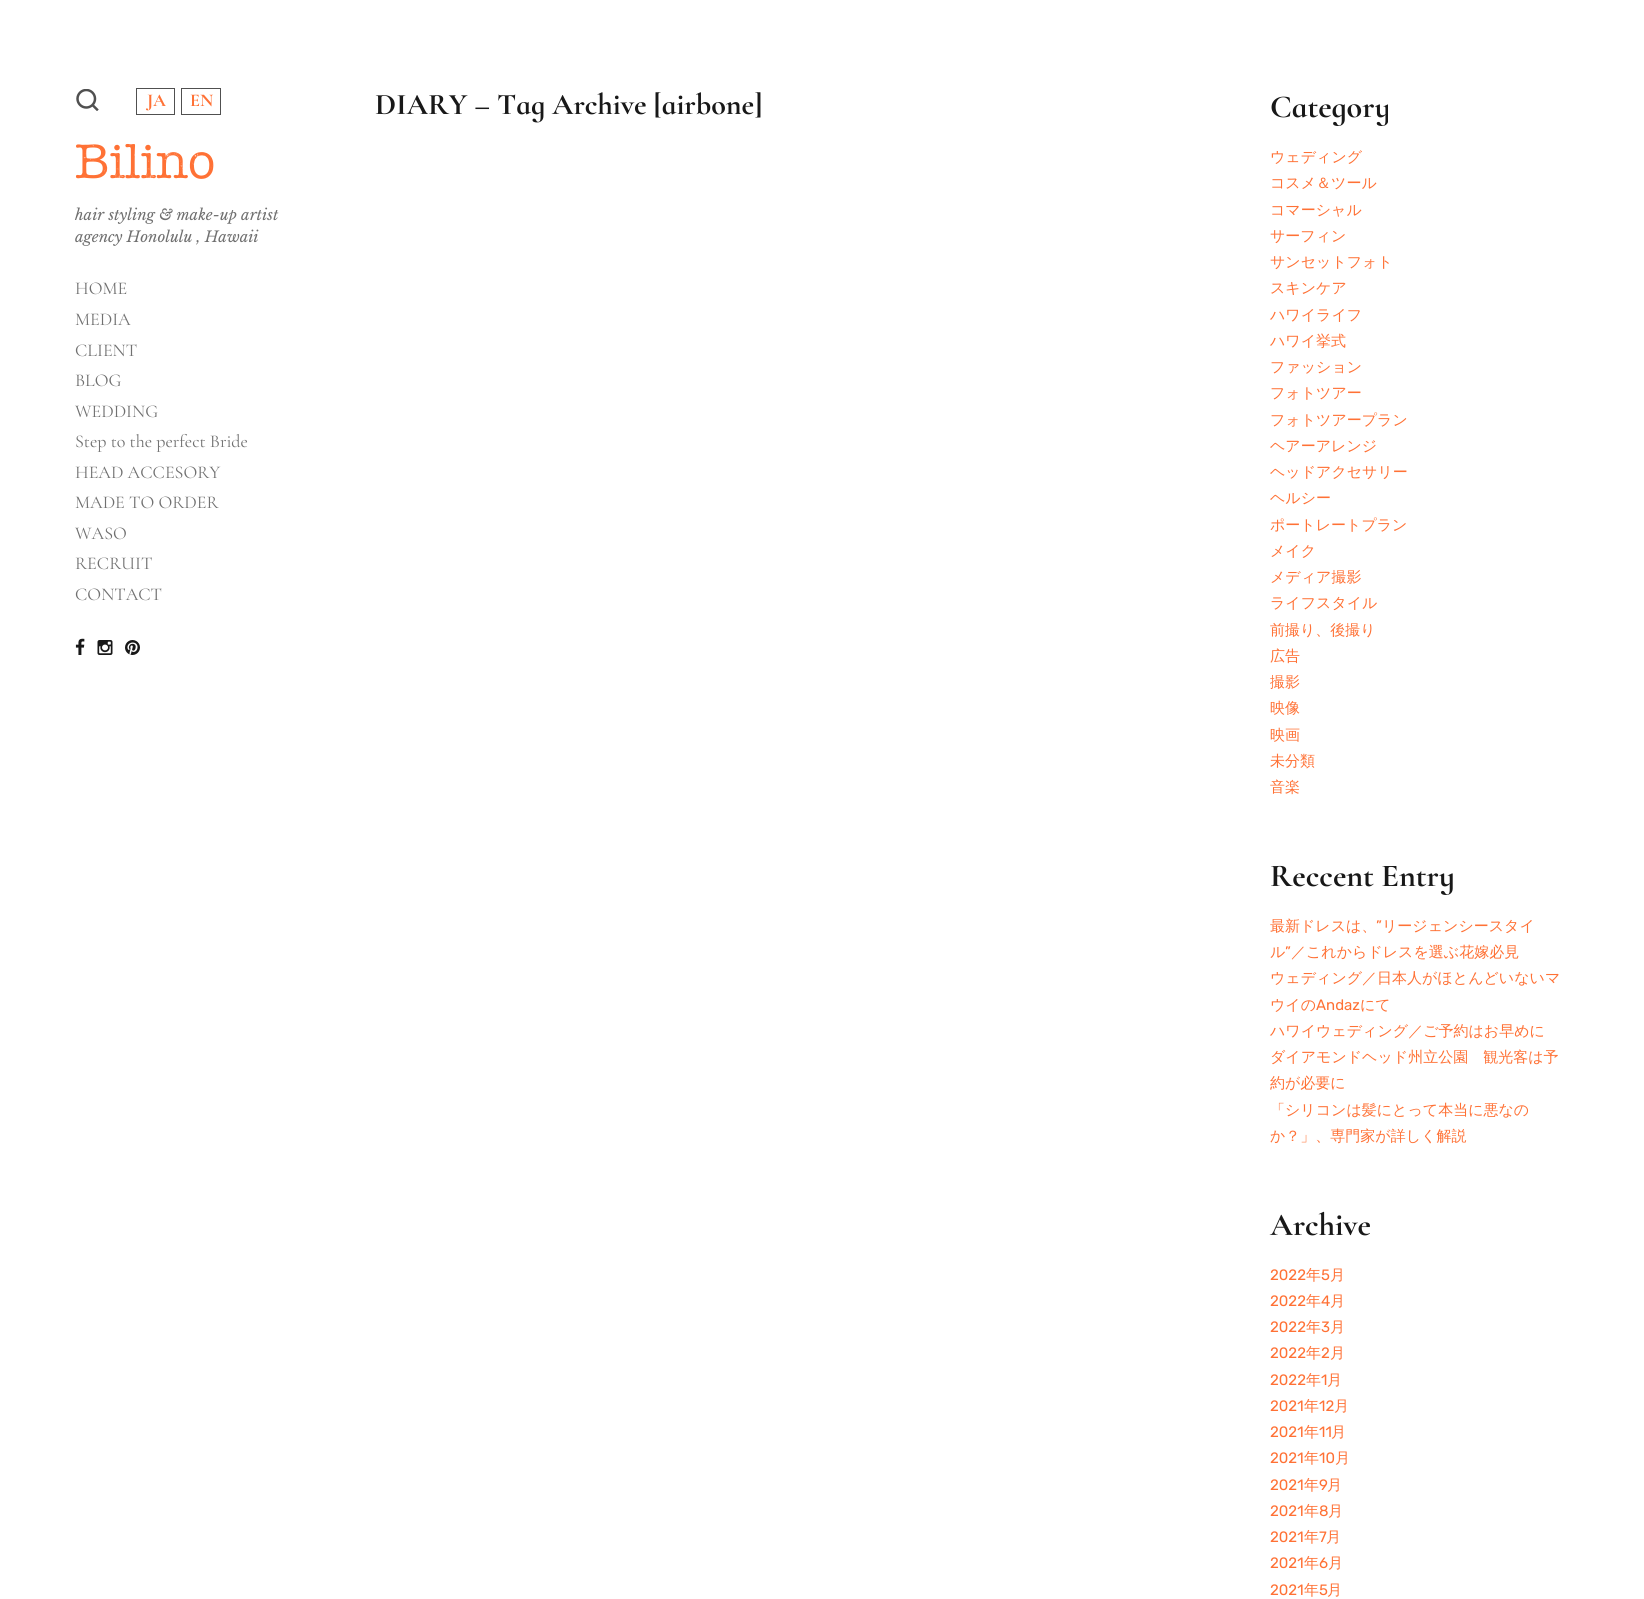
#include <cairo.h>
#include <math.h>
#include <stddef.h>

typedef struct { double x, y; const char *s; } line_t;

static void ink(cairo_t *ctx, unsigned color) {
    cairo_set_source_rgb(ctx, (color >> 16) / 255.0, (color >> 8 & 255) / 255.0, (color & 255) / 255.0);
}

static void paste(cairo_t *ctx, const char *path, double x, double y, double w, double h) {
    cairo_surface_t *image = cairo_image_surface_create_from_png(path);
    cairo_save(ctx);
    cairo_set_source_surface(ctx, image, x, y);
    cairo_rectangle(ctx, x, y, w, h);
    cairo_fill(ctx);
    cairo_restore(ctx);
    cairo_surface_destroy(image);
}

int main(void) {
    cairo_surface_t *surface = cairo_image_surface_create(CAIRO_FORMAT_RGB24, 1644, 1599);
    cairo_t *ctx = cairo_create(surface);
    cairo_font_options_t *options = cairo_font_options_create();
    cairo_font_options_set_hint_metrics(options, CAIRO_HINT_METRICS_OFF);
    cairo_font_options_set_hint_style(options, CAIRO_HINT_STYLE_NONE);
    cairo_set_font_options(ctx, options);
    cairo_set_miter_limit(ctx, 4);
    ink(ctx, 0xFFFFFF);
    cairo_paint(ctx);
    paste(ctx, "media/1.png", 76, 89, 23, 22);
    cairo_rectangle(ctx, 136.5, 88.5, 38, 26);
    ink(ctx, 0x505050);
    cairo_set_line_width(ctx, 1);
    cairo_stroke(ctx);
    cairo_select_font_face(ctx, "Cormorant Infant", CAIRO_FONT_SLANT_NORMAL, CAIRO_FONT_WEIGHT_BOLD);
    cairo_set_font_size(ctx, 18);
    ink(ctx, 0xFF7135);
    cairo_move_to(ctx, 147, 106);
    cairo_show_text(ctx, "JA");
    cairo_rectangle(ctx, 181.5, 88.5, 39, 26);
    ink(ctx, 0x505050);
    cairo_stroke(ctx);
    ink(ctx, 0xFF7135);
    cairo_move_to(ctx, 190, 106);
    cairo_show_text(ctx, "EN");
    cairo_select_font_face(ctx, "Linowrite", CAIRO_FONT_SLANT_NORMAL, CAIRO_FONT_WEIGHT_NORMAL);
    cairo_set_font_size(ctx, 50);
    cairo_move_to(ctx, 75, 178);
    cairo_show_text(ctx, "Bilino");
    cairo_select_font_face(ctx, "Libre Baskerville", CAIRO_FONT_SLANT_ITALIC, CAIRO_FONT_WEIGHT_NORMAL);
    cairo_set_font_size(ctx, 15);
    ink(ctx, 0x707070);
    cairo_move_to(ctx, 75, 220);
    cairo_show_text(ctx, "hair styling & make-up artist");
    cairo_move_to(ctx, 75, 242);
    cairo_show_text(ctx, "agency Honolulu , Hawaii");
    cairo_select_font_face(ctx, "Cormorant Infant", CAIRO_FONT_SLANT_NORMAL, CAIRO_FONT_WEIGHT_NORMAL);
    cairo_set_font_size(ctx, 18);
    {
        static const line_t items[] = {
            {75, 294, "HOME"},
            {75, 325, "MEDIA"},
            {75, 356, "CLIENT"},
            {75, 386, "BLOG"},
            {75, 417, "WEDDING"},
            {75, 447, "Step to the perfect Bride"},
            {75, 478, "HEAD ACCESORY"},
            {75, 508, "MADE TO ORDER"},
            {75, 539, "WASO"},
            {75, 569, "RECRUIT"},
            {75, 600, "CONTACT"},
        };
        for (size_t i = 0; i < sizeof items / sizeof *items; i++) {
            cairo_move_to(ctx, items[i].x, items[i].y);
            cairo_show_text(ctx, items[i].s);
        }
    }
    paste(ctx, "media/2.png", 75, 638, 10, 17);
    paste(ctx, "media/3.png", 97, 640, 16, 15);
    paste(ctx, "media/4.png", 125, 640, 15, 15);
    cairo_select_font_face(ctx, "Cormorant Infant", CAIRO_FONT_SLANT_NORMAL, CAIRO_FONT_WEIGHT_BOLD);
    cairo_set_font_size(ctx, 30);
    ink(ctx, 0x181818);
    cairo_move_to(ctx, 375, 114);
    cairo_show_text(ctx, "DIARY – Tag Archive [airbone]");
    cairo_set_font_size(ctx, 32);
    cairo_move_to(ctx, 1270, 117);
    cairo_show_text(ctx, "Category");
    cairo_select_font_face(ctx, "WenQuanYi Zen Hei Medium", CAIRO_FONT_SLANT_NORMAL, CAIRO_FONT_WEIGHT_NORMAL);
    cairo_set_font_size(ctx, 15);
    ink(ctx, 0xFF7135);
    {
        static const line_t items[] = {
            {1270, 162, "ウェディング"},
            {1270, 188, "コスメ＆ツール"},
            {1270, 215, "コマーシャル"},
            {1270, 241, "サーフィン"},
            {1270, 267, "サンセットフォト"},
            {1270, 293, "スキンケア"},
            {1270, 320, "ハワイライフ"},
            {1270, 346, "ハワイ挙式"},
            {1270, 372, "ファッション"},
            {1270, 398, "フォトツアー"},
            {1270, 425, "フォトツアープラン"},
            {1270, 451, "ヘアーアレンジ"},
            {1270, 477, "ヘッドアクセサリー"},
            {1270, 503, "ヘルシー"},
            {1270, 530, "ポートレートプラン"},
            {1270, 556, "メイク"},
            {1270, 582, "メディア撮影"},
            {1270, 608, "ライフスタイル"},
            {1270, 635, "前撮り、後撮り"},
            {1270, 661, "広告"},
            {1270, 687, "撮影"},
            {1270, 713, "映像"},
            {1270, 740, "映画"},
            {1270, 766, "未分類"},
            {1270, 792, "音楽"},
        };
        for (size_t i = 0; i < sizeof items / sizeof *items; i++) {
            cairo_move_to(ctx, items[i].x, items[i].y);
            cairo_show_text(ctx, items[i].s);
        }
    }
    cairo_select_font_face(ctx, "Cormorant Infant", CAIRO_FONT_SLANT_NORMAL, CAIRO_FONT_WEIGHT_BOLD);
    cairo_set_font_size(ctx, 32);
    ink(ctx, 0x181818);
    cairo_move_to(ctx, 1270, 886);
    cairo_show_text(ctx, "Reccent Entry");
    cairo_select_font_face(ctx, "WenQuanYi Zen Hei Medium", CAIRO_FONT_SLANT_NORMAL, CAIRO_FONT_WEIGHT_NORMAL);
    cairo_set_font_size(ctx, 15);
    ink(ctx, 0xFF7135);
    cairo_move_to(ctx, 1270, 931);
    cairo_show_text(ctx, "最新ドレスは、");
    cairo_select_font_face(ctx, "Rubik", CAIRO_FONT_SLANT_NORMAL, CAIRO_FONT_WEIGHT_NORMAL);
    cairo_move_to(ctx, 1376, 931);
    cairo_show_text(ctx, "”");
    cairo_select_font_face(ctx, "WenQuanYi Zen Hei Medium", CAIRO_FONT_SLANT_NORMAL, CAIRO_FONT_WEIGHT_NORMAL);
    cairo_move_to(ctx, 1382, 931);
    cairo_show_text(ctx, "リージェンシースタイ");
    cairo_move_to(ctx, 1270, 957);
    cairo_show_text(ctx, "ル");
    cairo_select_font_face(ctx, "Rubik", CAIRO_FONT_SLANT_NORMAL, CAIRO_FONT_WEIGHT_NORMAL);
    cairo_move_to(ctx, 1285, 957);
    cairo_show_text(ctx, "”");
    cairo_select_font_face(ctx, "WenQuanYi Zen Hei Medium", CAIRO_FONT_SLANT_NORMAL, CAIRO_FONT_WEIGHT_NORMAL);
    {
        static const line_t items[] = {
            {1291, 957, "／これからドレスを選ぶ花嫁必見"},
            {1270, 983, "ウェディング／日本人がほとんどいないマ"},
            {1270, 1010, "ウイの"},
        };
        for (size_t i = 0; i < sizeof items / sizeof *items; i++) {
            cairo_move_to(ctx, items[i].x, items[i].y);
            cairo_show_text(ctx, items[i].s);
        }
    }
    cairo_select_font_face(ctx, "Rubik", CAIRO_FONT_SLANT_NORMAL, CAIRO_FONT_WEIGHT_NORMAL);
    cairo_move_to(ctx, 1316, 1010);
    cairo_show_text(ctx, "Andaz");
    cairo_select_font_face(ctx, "WenQuanYi Zen Hei Medium", CAIRO_FONT_SLANT_NORMAL, CAIRO_FONT_WEIGHT_NORMAL);
    {
        static const line_t items[] = {
            {1360, 1010, "にて"},
            {1270, 1036, "ハワイウェディング／ご予約はお早めに"},
            {1270, 1062, "ダイアモンドヘッド州立公園　観光客は予"},
            {1270, 1088, "約が必要に"},
            {1270, 1115, "「シリコンは髪にとって本当に悪なの"},
            {1270, 1141, "か？」、専門家が詳しく解説"},
        };
        for (size_t i = 0; i < sizeof items / sizeof *items; i++) {
            cairo_move_to(ctx, items[i].x, items[i].y);
            cairo_show_text(ctx, items[i].s);
        }
    }
    cairo_select_font_face(ctx, "Cormorant Infant", CAIRO_FONT_SLANT_NORMAL, CAIRO_FONT_WEIGHT_BOLD);
    cairo_set_font_size(ctx, 32);
    ink(ctx, 0x181818);
    cairo_move_to(ctx, 1270, 1235);
    cairo_show_text(ctx, "Archive");
    cairo_select_font_face(ctx, "Rubik", CAIRO_FONT_SLANT_NORMAL, CAIRO_FONT_WEIGHT_NORMAL);
    cairo_set_font_size(ctx, 15);
    ink(ctx, 0xFF7135);
    cairo_move_to(ctx, 1270, 1280);
    cairo_show_text(ctx, "2022");
    cairo_select_font_face(ctx, "WenQuanYi Zen Hei Medium", CAIRO_FONT_SLANT_NORMAL, CAIRO_FONT_WEIGHT_NORMAL);
    cairo_move_to(ctx, 1306, 1280);
    cairo_show_text(ctx, "年");
    cairo_select_font_face(ctx, "Rubik", CAIRO_FONT_SLANT_NORMAL, CAIRO_FONT_WEIGHT_NORMAL);
    cairo_move_to(ctx, 1321, 1280);
    cairo_show_text(ctx, "5");
    cairo_select_font_face(ctx, "WenQuanYi Zen Hei Medium", CAIRO_FONT_SLANT_NORMAL, CAIRO_FONT_WEIGHT_NORMAL);
    cairo_move_to(ctx, 1330, 1280);
    cairo_show_text(ctx, "月");
    cairo_select_font_face(ctx, "Rubik", CAIRO_FONT_SLANT_NORMAL, CAIRO_FONT_WEIGHT_NORMAL);
    cairo_move_to(ctx, 1270, 1306);
    cairo_show_text(ctx, "2022");
    cairo_select_font_face(ctx, "WenQuanYi Zen Hei Medium", CAIRO_FONT_SLANT_NORMAL, CAIRO_FONT_WEIGHT_NORMAL);
    cairo_move_to(ctx, 1306, 1306);
    cairo_show_text(ctx, "年");
    cairo_select_font_face(ctx, "Rubik", CAIRO_FONT_SLANT_NORMAL, CAIRO_FONT_WEIGHT_NORMAL);
    cairo_move_to(ctx, 1321, 1306);
    cairo_show_text(ctx, "4");
    cairo_select_font_face(ctx, "WenQuanYi Zen Hei Medium", CAIRO_FONT_SLANT_NORMAL, CAIRO_FONT_WEIGHT_NORMAL);
    cairo_move_to(ctx, 1330, 1306);
    cairo_show_text(ctx, "月");
    cairo_select_font_face(ctx, "Rubik", CAIRO_FONT_SLANT_NORMAL, CAIRO_FONT_WEIGHT_NORMAL);
    cairo_move_to(ctx, 1270, 1332);
    cairo_show_text(ctx, "2022");
    cairo_select_font_face(ctx, "WenQuanYi Zen Hei Medium", CAIRO_FONT_SLANT_NORMAL, CAIRO_FONT_WEIGHT_NORMAL);
    cairo_move_to(ctx, 1306, 1332);
    cairo_show_text(ctx, "年");
    cairo_select_font_face(ctx, "Rubik", CAIRO_FONT_SLANT_NORMAL, CAIRO_FONT_WEIGHT_NORMAL);
    cairo_move_to(ctx, 1321, 1332);
    cairo_show_text(ctx, "3");
    cairo_select_font_face(ctx, "WenQuanYi Zen Hei Medium", CAIRO_FONT_SLANT_NORMAL, CAIRO_FONT_WEIGHT_NORMAL);
    cairo_move_to(ctx, 1330, 1332);
    cairo_show_text(ctx, "月");
    cairo_select_font_face(ctx, "Rubik", CAIRO_FONT_SLANT_NORMAL, CAIRO_FONT_WEIGHT_NORMAL);
    cairo_move_to(ctx, 1270, 1358);
    cairo_show_text(ctx, "2022");
    cairo_select_font_face(ctx, "WenQuanYi Zen Hei Medium", CAIRO_FONT_SLANT_NORMAL, CAIRO_FONT_WEIGHT_NORMAL);
    cairo_move_to(ctx, 1306, 1358);
    cairo_show_text(ctx, "年");
    cairo_select_font_face(ctx, "Rubik", CAIRO_FONT_SLANT_NORMAL, CAIRO_FONT_WEIGHT_NORMAL);
    cairo_move_to(ctx, 1321, 1358);
    cairo_show_text(ctx, "2");
    cairo_select_font_face(ctx, "WenQuanYi Zen Hei Medium", CAIRO_FONT_SLANT_NORMAL, CAIRO_FONT_WEIGHT_NORMAL);
    cairo_move_to(ctx, 1330, 1358);
    cairo_show_text(ctx, "月");
    cairo_select_font_face(ctx, "Rubik", CAIRO_FONT_SLANT_NORMAL, CAIRO_FONT_WEIGHT_NORMAL);
    cairo_move_to(ctx, 1270, 1385);
    cairo_show_text(ctx, "2022");
    cairo_select_font_face(ctx, "WenQuanYi Zen Hei Medium", CAIRO_FONT_SLANT_NORMAL, CAIRO_FONT_WEIGHT_NORMAL);
    cairo_move_to(ctx, 1306, 1385);
    cairo_show_text(ctx, "年");
    cairo_select_font_face(ctx, "Rubik", CAIRO_FONT_SLANT_NORMAL, CAIRO_FONT_WEIGHT_NORMAL);
    cairo_move_to(ctx, 1321, 1385);
    cairo_show_text(ctx, "1");
    cairo_select_font_face(ctx, "WenQuanYi Zen Hei Medium", CAIRO_FONT_SLANT_NORMAL, CAIRO_FONT_WEIGHT_NORMAL);
    cairo_move_to(ctx, 1327, 1385);
    cairo_show_text(ctx, "月");
    cairo_select_font_face(ctx, "Rubik", CAIRO_FONT_SLANT_NORMAL, CAIRO_FONT_WEIGHT_NORMAL);
    cairo_move_to(ctx, 1270, 1411);
    cairo_show_text(ctx, "2021");
    cairo_select_font_face(ctx, "WenQuanYi Zen Hei Medium", CAIRO_FONT_SLANT_NORMAL, CAIRO_FONT_WEIGHT_NORMAL);
    cairo_move_to(ctx, 1304, 1411);
    cairo_show_text(ctx, "年");
    cairo_select_font_face(ctx, "Rubik", CAIRO_FONT_SLANT_NORMAL, CAIRO_FONT_WEIGHT_NORMAL);
    cairo_move_to(ctx, 1319, 1411);
    cairo_show_text(ctx, "12");
    cairo_select_font_face(ctx, "WenQuanYi Zen Hei Medium", CAIRO_FONT_SLANT_NORMAL, CAIRO_FONT_WEIGHT_NORMAL);
    cairo_move_to(ctx, 1334, 1411);
    cairo_show_text(ctx, "月");
    cairo_select_font_face(ctx, "Rubik", CAIRO_FONT_SLANT_NORMAL, CAIRO_FONT_WEIGHT_NORMAL);
    cairo_move_to(ctx, 1270, 1437);
    cairo_show_text(ctx, "2021");
    cairo_select_font_face(ctx, "WenQuanYi Zen Hei Medium", CAIRO_FONT_SLANT_NORMAL, CAIRO_FONT_WEIGHT_NORMAL);
    cairo_move_to(ctx, 1304, 1437);
    cairo_show_text(ctx, "年");
    cairo_select_font_face(ctx, "Rubik", CAIRO_FONT_SLANT_NORMAL, CAIRO_FONT_WEIGHT_NORMAL);
    cairo_move_to(ctx, 1319, 1437);
    cairo_show_text(ctx, "11");
    cairo_select_font_face(ctx, "WenQuanYi Zen Hei Medium", CAIRO_FONT_SLANT_NORMAL, CAIRO_FONT_WEIGHT_NORMAL);
    cairo_move_to(ctx, 1331, 1437);
    cairo_show_text(ctx, "月");
    cairo_select_font_face(ctx, "Rubik", CAIRO_FONT_SLANT_NORMAL, CAIRO_FONT_WEIGHT_NORMAL);
    cairo_move_to(ctx, 1270, 1463);
    cairo_show_text(ctx, "2021");
    cairo_select_font_face(ctx, "WenQuanYi Zen Hei Medium", CAIRO_FONT_SLANT_NORMAL, CAIRO_FONT_WEIGHT_NORMAL);
    cairo_move_to(ctx, 1304, 1463);
    cairo_show_text(ctx, "年");
    cairo_select_font_face(ctx, "Rubik", CAIRO_FONT_SLANT_NORMAL, CAIRO_FONT_WEIGHT_NORMAL);
    cairo_move_to(ctx, 1319, 1463);
    cairo_show_text(ctx, "10");
    cairo_select_font_face(ctx, "WenQuanYi Zen Hei Medium", CAIRO_FONT_SLANT_NORMAL, CAIRO_FONT_WEIGHT_NORMAL);
    cairo_move_to(ctx, 1335, 1463);
    cairo_show_text(ctx, "月");
    cairo_select_font_face(ctx, "Rubik", CAIRO_FONT_SLANT_NORMAL, CAIRO_FONT_WEIGHT_NORMAL);
    cairo_move_to(ctx, 1270, 1490);
    cairo_show_text(ctx, "2021");
    cairo_select_font_face(ctx, "WenQuanYi Zen Hei Medium", CAIRO_FONT_SLANT_NORMAL, CAIRO_FONT_WEIGHT_NORMAL);
    cairo_move_to(ctx, 1304, 1490);
    cairo_show_text(ctx, "年");
    cairo_select_font_face(ctx, "Rubik", CAIRO_FONT_SLANT_NORMAL, CAIRO_FONT_WEIGHT_NORMAL);
    cairo_move_to(ctx, 1319, 1490);
    cairo_show_text(ctx, "9");
    cairo_select_font_face(ctx, "WenQuanYi Zen Hei Medium", CAIRO_FONT_SLANT_NORMAL, CAIRO_FONT_WEIGHT_NORMAL);
    cairo_move_to(ctx, 1327, 1490);
    cairo_show_text(ctx, "月");
    cairo_select_font_face(ctx, "Rubik", CAIRO_FONT_SLANT_NORMAL, CAIRO_FONT_WEIGHT_NORMAL);
    cairo_move_to(ctx, 1270, 1516);
    cairo_show_text(ctx, "2021");
    cairo_select_font_face(ctx, "WenQuanYi Zen Hei Medium", CAIRO_FONT_SLANT_NORMAL, CAIRO_FONT_WEIGHT_NORMAL);
    cairo_move_to(ctx, 1304, 1516);
    cairo_show_text(ctx, "年");
    cairo_select_font_face(ctx, "Rubik", CAIRO_FONT_SLANT_NORMAL, CAIRO_FONT_WEIGHT_NORMAL);
    cairo_move_to(ctx, 1319, 1516);
    cairo_show_text(ctx, "8");
    cairo_select_font_face(ctx, "WenQuanYi Zen Hei Medium", CAIRO_FONT_SLANT_NORMAL, CAIRO_FONT_WEIGHT_NORMAL);
    cairo_move_to(ctx, 1328, 1516);
    cairo_show_text(ctx, "月");
    cairo_select_font_face(ctx, "Rubik", CAIRO_FONT_SLANT_NORMAL, CAIRO_FONT_WEIGHT_NORMAL);
    cairo_move_to(ctx, 1270, 1542);
    cairo_show_text(ctx, "2021");
    cairo_select_font_face(ctx, "WenQuanYi Zen Hei Medium", CAIRO_FONT_SLANT_NORMAL, CAIRO_FONT_WEIGHT_NORMAL);
    cairo_move_to(ctx, 1304, 1542);
    cairo_show_text(ctx, "年");
    cairo_select_font_face(ctx, "Rubik", CAIRO_FONT_SLANT_NORMAL, CAIRO_FONT_WEIGHT_NORMAL);
    cairo_move_to(ctx, 1319, 1542);
    cairo_show_text(ctx, "7");
    cairo_select_font_face(ctx, "WenQuanYi Zen Hei Medium", CAIRO_FONT_SLANT_NORMAL, CAIRO_FONT_WEIGHT_NORMAL);
    cairo_move_to(ctx, 1326, 1542);
    cairo_show_text(ctx, "月");
    cairo_select_font_face(ctx, "Rubik", CAIRO_FONT_SLANT_NORMAL, CAIRO_FONT_WEIGHT_NORMAL);
    cairo_move_to(ctx, 1270, 1568);
    cairo_show_text(ctx, "2021");
    cairo_select_font_face(ctx, "WenQuanYi Zen Hei Medium", CAIRO_FONT_SLANT_NORMAL, CAIRO_FONT_WEIGHT_NORMAL);
    cairo_move_to(ctx, 1304, 1568);
    cairo_show_text(ctx, "年");
    cairo_select_font_face(ctx, "Rubik", CAIRO_FONT_SLANT_NORMAL, CAIRO_FONT_WEIGHT_NORMAL);
    cairo_move_to(ctx, 1319, 1568);
    cairo_show_text(ctx, "6");
    cairo_select_font_face(ctx, "WenQuanYi Zen Hei Medium", CAIRO_FONT_SLANT_NORMAL, CAIRO_FONT_WEIGHT_NORMAL);
    cairo_move_to(ctx, 1328, 1568);
    cairo_show_text(ctx, "月");
    cairo_select_font_face(ctx, "Rubik", CAIRO_FONT_SLANT_NORMAL, CAIRO_FONT_WEIGHT_NORMAL);
    cairo_move_to(ctx, 1270, 1595);
    cairo_show_text(ctx, "2021");
    cairo_select_font_face(ctx, "WenQuanYi Zen Hei Medium", CAIRO_FONT_SLANT_NORMAL, CAIRO_FONT_WEIGHT_NORMAL);
    cairo_move_to(ctx, 1304, 1595);
    cairo_show_text(ctx, "年");
    cairo_select_font_face(ctx, "Rubik", CAIRO_FONT_SLANT_NORMAL, CAIRO_FONT_WEIGHT_NORMAL);
    cairo_move_to(ctx, 1319, 1595);
    cairo_show_text(ctx, "5");
    cairo_select_font_face(ctx, "WenQuanYi Zen Hei Medium", CAIRO_FONT_SLANT_NORMAL, CAIRO_FONT_WEIGHT_NORMAL);
    cairo_move_to(ctx, 1327, 1595);
    cairo_show_text(ctx, "月");
    cairo_surface_write_to_png(surface, "image.png");
    cairo_font_options_destroy(options);
    cairo_destroy(ctx);
    cairo_surface_destroy(surface);
    return 0;
}
